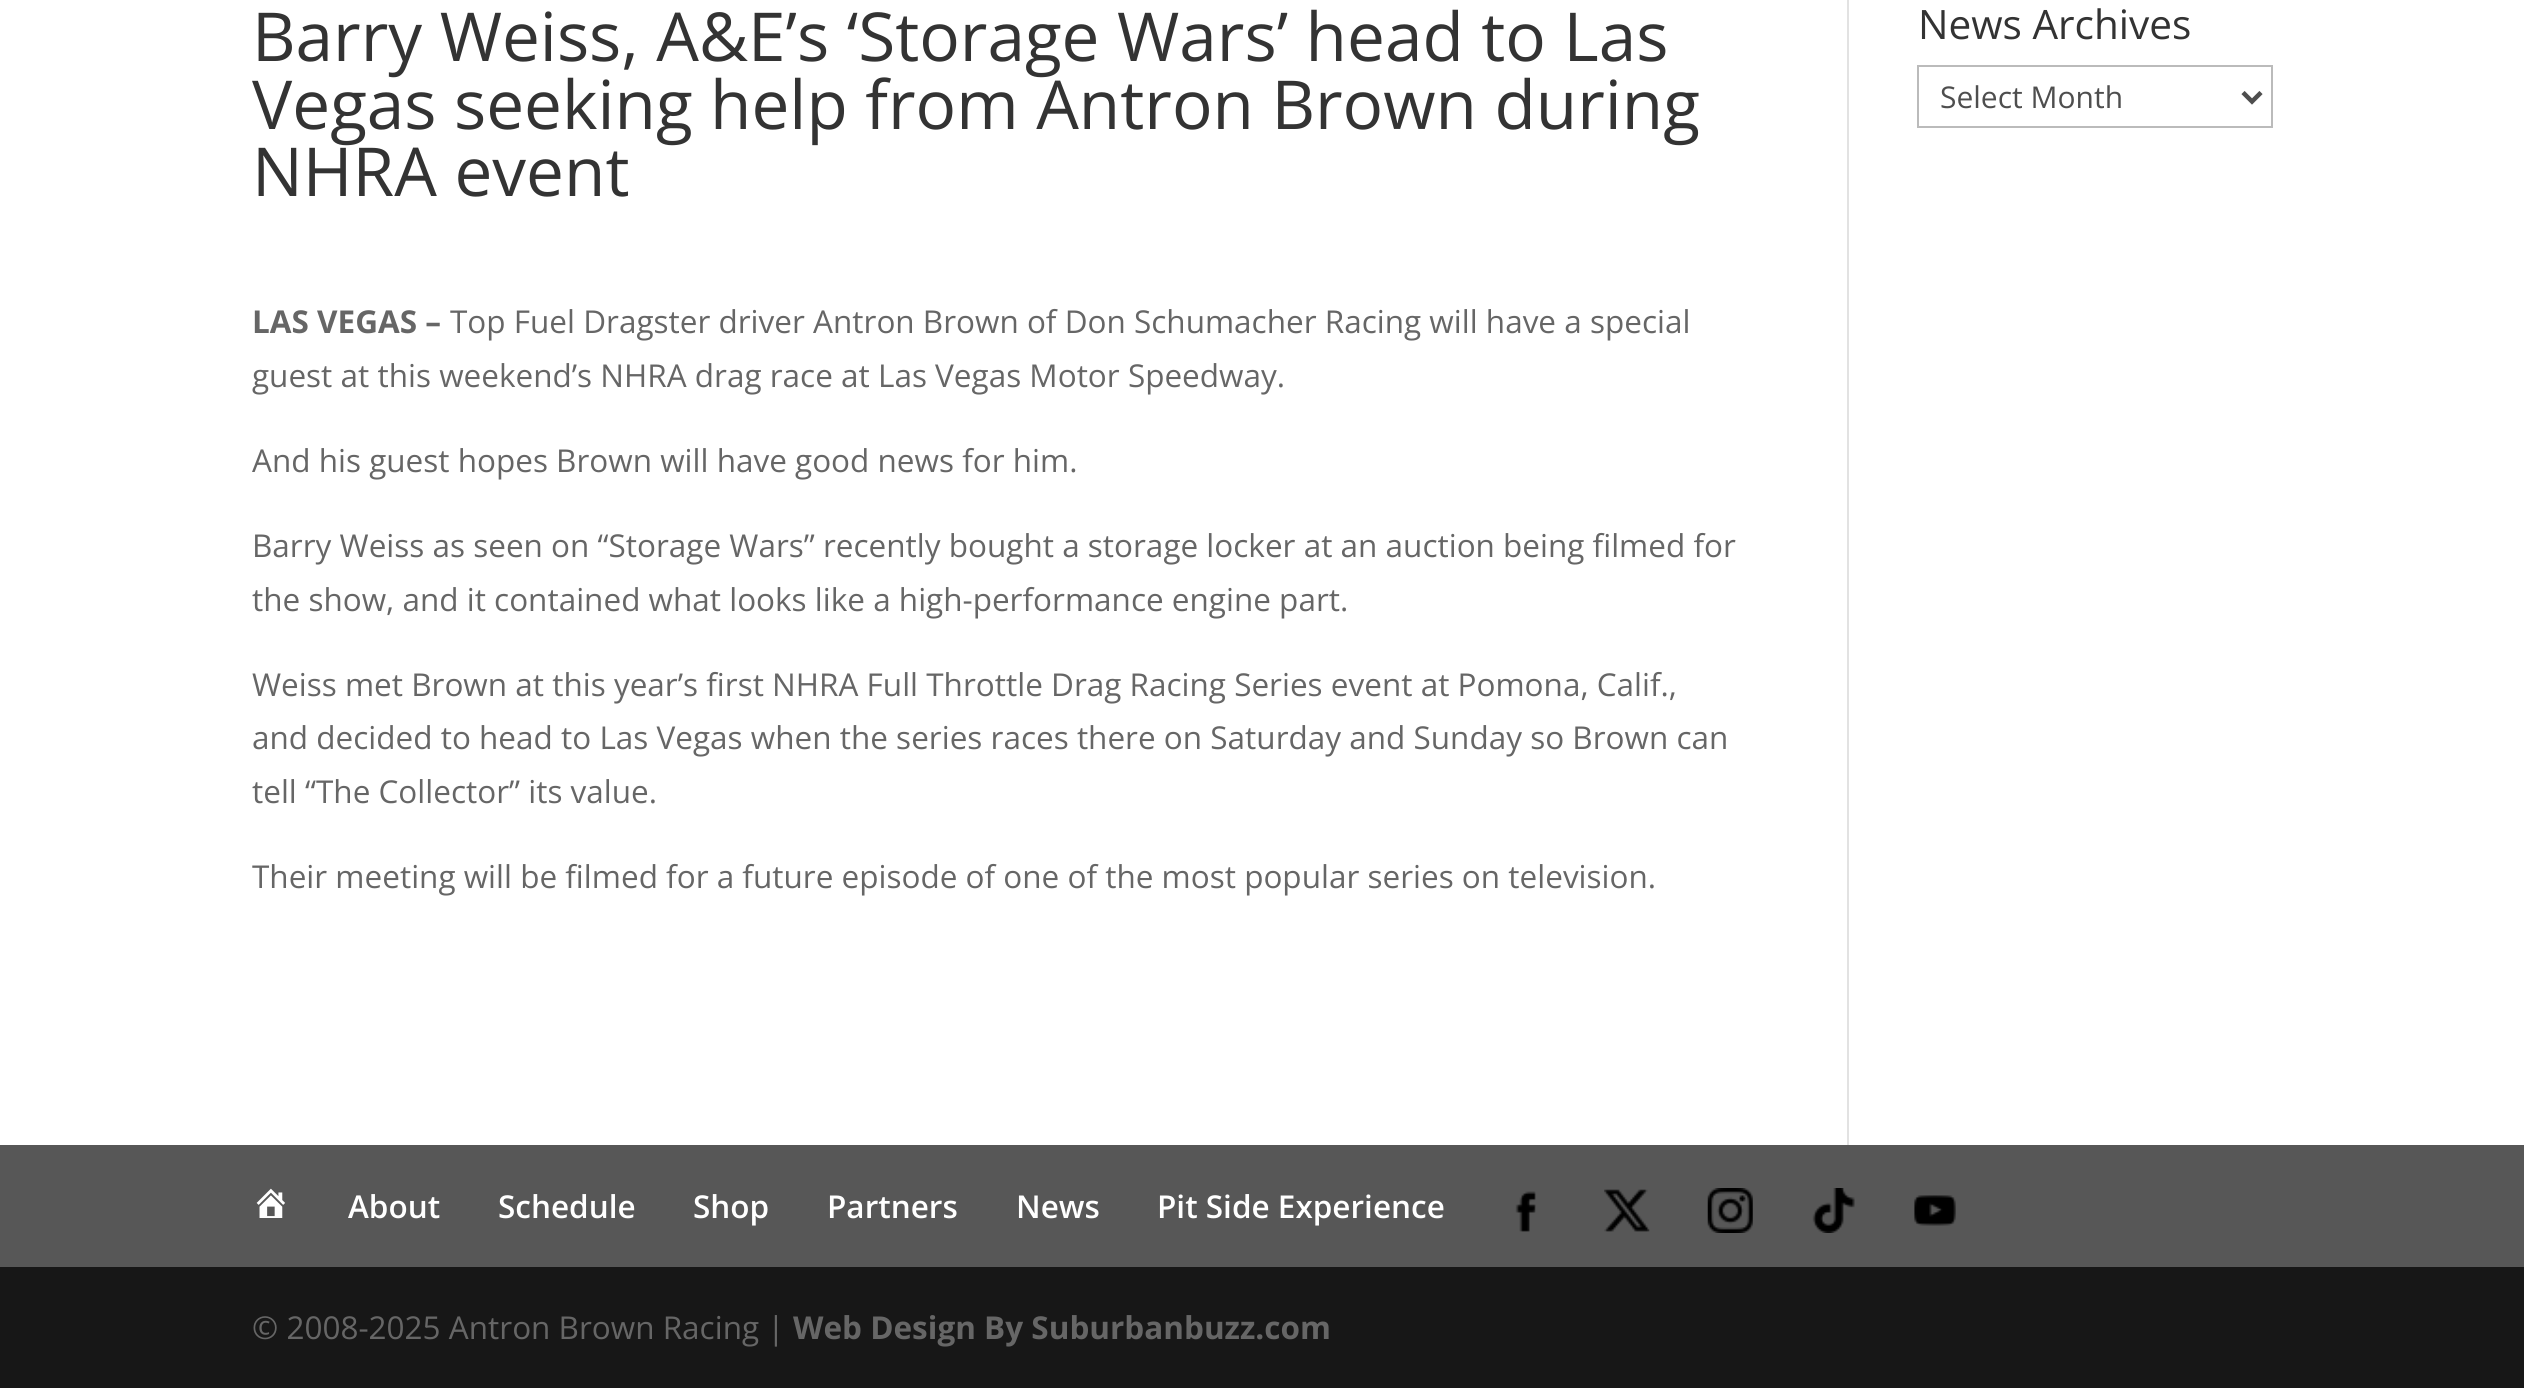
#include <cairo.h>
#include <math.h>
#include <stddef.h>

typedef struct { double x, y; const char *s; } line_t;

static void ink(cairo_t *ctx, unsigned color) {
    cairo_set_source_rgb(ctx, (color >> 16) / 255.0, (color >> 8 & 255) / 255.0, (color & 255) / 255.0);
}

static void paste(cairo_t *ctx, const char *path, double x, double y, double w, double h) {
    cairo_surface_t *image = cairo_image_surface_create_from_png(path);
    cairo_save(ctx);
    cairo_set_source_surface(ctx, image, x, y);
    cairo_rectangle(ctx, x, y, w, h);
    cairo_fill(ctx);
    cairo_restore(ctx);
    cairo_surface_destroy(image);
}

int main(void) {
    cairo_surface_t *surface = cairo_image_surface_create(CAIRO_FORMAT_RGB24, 2524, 1388);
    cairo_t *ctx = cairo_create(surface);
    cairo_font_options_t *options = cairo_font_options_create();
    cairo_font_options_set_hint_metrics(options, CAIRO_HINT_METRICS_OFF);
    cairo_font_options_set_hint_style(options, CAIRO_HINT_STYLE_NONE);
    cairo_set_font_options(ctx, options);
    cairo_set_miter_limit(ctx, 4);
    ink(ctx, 0xFFFFFF);
    cairo_paint(ctx);
    ink(ctx, 0xE2E2E2);
    cairo_rectangle(ctx, 1847, 0, 2, 1145);
    cairo_fill(ctx);
    cairo_select_font_face(ctx, "Open Sans", CAIRO_FONT_SLANT_NORMAL, CAIRO_FONT_WEIGHT_NORMAL);
    cairo_set_font_size(ctx, 67.5);
    ink(ctx, 0x333333);
    {
        static const line_t items[] = {
            {252, 61, "Barry Weiss, A&E’s ‘Storage Wars’ head to Las"},
            {252, 129, "Vegas seeking help from Antron Brown during"},
            {252, 196, "NHRA event"},
        };
        for (size_t i = 0; i < sizeof items / sizeof *items; i++) {
            cairo_move_to(ctx, items[i].x, items[i].y);
            cairo_show_text(ctx, items[i].s);
        }
    }
    cairo_select_font_face(ctx, "Open Sans", CAIRO_FONT_SLANT_NORMAL, CAIRO_FONT_WEIGHT_BOLD);
    cairo_set_font_size(ctx, 31.5);
    ink(ctx, 0x666666);
    cairo_move_to(ctx, 252, 333);
    cairo_show_text(ctx, "LAS VEGAS –");
    cairo_select_font_face(ctx, "Open Sans", CAIRO_FONT_SLANT_NORMAL, CAIRO_FONT_WEIGHT_NORMAL);
    {
        static const line_t items[] = {
            {450, 333, "Top Fuel Dragster driver Antron Brown of Don Schumacher Racing will have a special"},
            {252, 387, "guest at this weekend’s NHRA drag race at Las Vegas Motor Speedway."},
            {252, 472, "And his guest hopes Brown will have good news for him."},
            {252, 557, "Barry Weiss as seen on “Storage Wars” recently bought a storage locker at an auction being filmed for"},
            {252, 611, "the show, and it contained what looks like a high-performance engine part."},
            {252, 696, "Weiss met Brown at this year’s first NHRA Full Throttle Drag Racing Series event at Pomona, Calif.,"},
            {252, 749, "and decided to head to Las Vegas when the series races there on Saturday and Sunday so Brown can"},
            {252, 803, "tell “The Collector” its value."},
            {252, 888, "Their meeting will be filmed for a future episode of one of the most popular series on television."},
        };
        for (size_t i = 0; i < sizeof items / sizeof *items; i++) {
            cairo_move_to(ctx, items[i].x, items[i].y);
            cairo_show_text(ctx, items[i].s);
        }
    }
    cairo_set_font_size(ctx, 40.5);
    ink(ctx, 0x333333);
    cairo_move_to(ctx, 1918, 39);
    cairo_show_text(ctx, "News Archives");
    cairo_rectangle(ctx, 1918, 66, 354, 61);
    ink(ctx, 0xBBBBBB);
    cairo_stroke(ctx);
    cairo_new_path(ctx);
    cairo_move_to(ctx, 2243, 92.5);
    cairo_line_to(ctx, 2252, 101.5);
    cairo_line_to(ctx, 2261, 92.5);
    ink(ctx, 0x4E4E4E);
    cairo_set_line_width(ctx, 4.5);
    cairo_stroke(ctx);
    cairo_set_font_size(ctx, 30);
    cairo_move_to(ctx, 1940, 108);
    cairo_show_text(ctx, "Select Month");
    ink(ctx, 0x575757);
    cairo_rectangle(ctx, 0, 1145, 2524, 122);
    cairo_fill(ctx);
    paste(ctx, "media/1.png", 256, 1188, 29, 30);
    cairo_select_font_face(ctx, "Open Sans SemiBold", CAIRO_FONT_SLANT_NORMAL, CAIRO_FONT_WEIGHT_NORMAL);
    cairo_set_font_size(ctx, 31.5);
    ink(ctx, 0xFFFFFF);
    {
        static const line_t items[] = {
            {348, 1218, "About"},
            {498, 1218, "Schedule"},
            {693, 1218, "Shop"},
            {827, 1218, "Partners"},
            {1016, 1218, "News"},
            {1157, 1218, "Pit Side Experience"},
        };
        for (size_t i = 0; i < sizeof items / sizeof *items; i++) {
            cairo_move_to(ctx, items[i].x, items[i].y);
            cairo_show_text(ctx, items[i].s);
        }
    }
    paste(ctx, "media/2.png", 1515, 1191, 21, 41);
    paste(ctx, "media/3.png", 1604, 1189, 46, 43);
    paste(ctx, "media/4.png", 1707, 1188, 46, 45);
    paste(ctx, "media/5.png", 1812, 1188, 43, 45);
    paste(ctx, "media/6.png", 1914, 1195, 42, 31);
    ink(ctx, 0x171717);
    cairo_rectangle(ctx, 0, 1267, 2524, 121);
    cairo_fill(ctx);
    cairo_select_font_face(ctx, "Open Sans", CAIRO_FONT_SLANT_NORMAL, CAIRO_FONT_WEIGHT_NORMAL);
    ink(ctx, 0x666666);
    cairo_move_to(ctx, 252, 1339);
    cairo_show_text(ctx, "© 2008-2025 Antron Brown Racing |");
    cairo_select_font_face(ctx, "Open Sans", CAIRO_FONT_SLANT_NORMAL, CAIRO_FONT_WEIGHT_BOLD);
    cairo_move_to(ctx, 793, 1339);
    cairo_show_text(ctx, "Web Design By Suburbanbuzz.com");
    cairo_surface_write_to_png(surface, "image.png");
    cairo_font_options_destroy(options);
    cairo_destroy(ctx);
    cairo_surface_destroy(surface);
    return 0;
}
